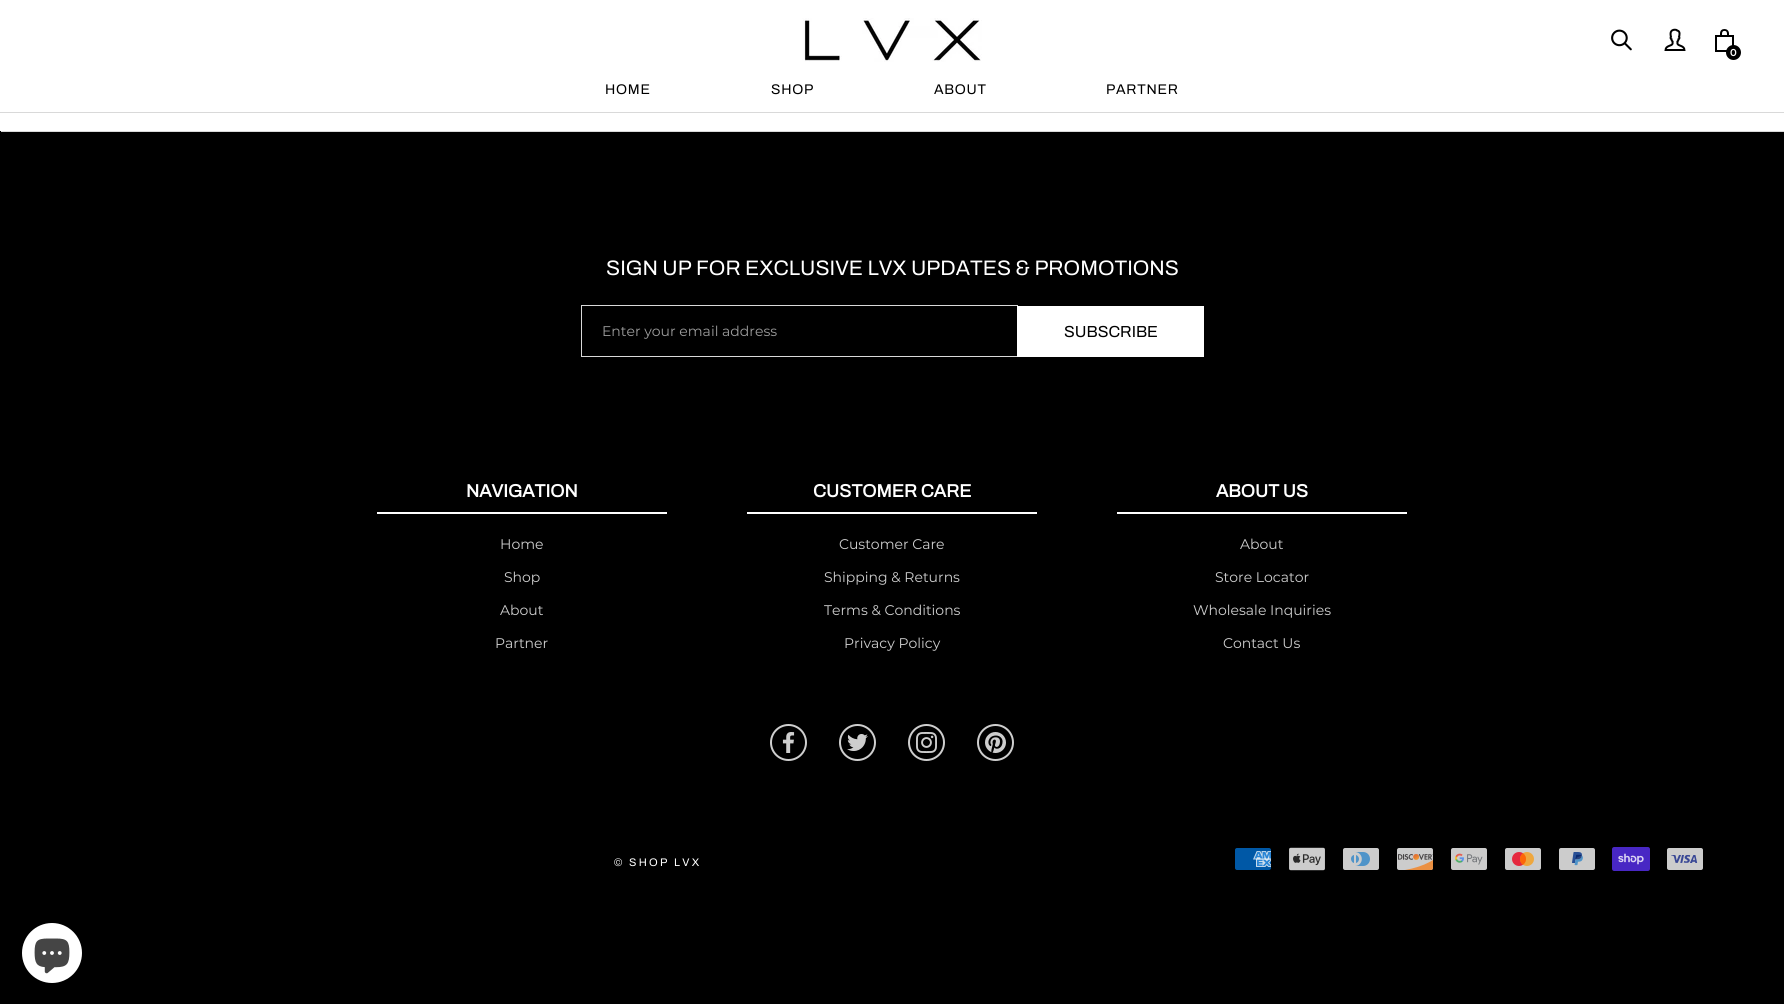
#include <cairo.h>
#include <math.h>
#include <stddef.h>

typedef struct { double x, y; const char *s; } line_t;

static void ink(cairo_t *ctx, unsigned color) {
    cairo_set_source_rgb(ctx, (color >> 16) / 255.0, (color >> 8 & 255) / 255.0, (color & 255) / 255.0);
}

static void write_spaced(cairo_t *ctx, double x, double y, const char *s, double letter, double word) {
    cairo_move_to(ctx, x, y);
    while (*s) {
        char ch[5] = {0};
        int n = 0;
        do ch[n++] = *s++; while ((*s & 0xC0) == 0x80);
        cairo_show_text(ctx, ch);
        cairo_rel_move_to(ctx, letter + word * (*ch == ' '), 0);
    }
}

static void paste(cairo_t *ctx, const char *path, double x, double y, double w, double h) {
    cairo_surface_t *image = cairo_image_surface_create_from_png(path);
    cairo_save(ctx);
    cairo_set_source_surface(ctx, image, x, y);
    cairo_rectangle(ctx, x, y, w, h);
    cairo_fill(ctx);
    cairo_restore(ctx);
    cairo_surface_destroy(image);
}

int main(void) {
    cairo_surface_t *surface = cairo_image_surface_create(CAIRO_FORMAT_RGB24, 1784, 1004);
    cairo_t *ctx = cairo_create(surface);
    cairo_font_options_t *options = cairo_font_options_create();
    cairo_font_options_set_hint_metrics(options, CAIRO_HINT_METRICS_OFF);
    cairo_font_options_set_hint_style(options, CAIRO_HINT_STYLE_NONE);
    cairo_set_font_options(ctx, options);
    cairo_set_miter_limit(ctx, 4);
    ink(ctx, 0x000000);
    cairo_paint(ctx);
    ink(ctx, 0xFFFFFF);
    cairo_rectangle(ctx, 0, 0, 1784, 112);
    cairo_fill(ctx);
    ink(ctx, 0xD9D9D9);
    cairo_rectangle(ctx, 0, 112, 1784, 1);
    cairo_fill(ctx);
    paste(ctx, "media/1.png", 802, 18, 180, 44);
    paste(ctx, "media/2.png", 1611, 29, 21, 22);
    paste(ctx, "media/3.png", 1664, 28, 22, 23);
    paste(ctx, "media/4.png", 1715, 29, 19, 23);
    ink(ctx, 0x000000);
    cairo_arc(ctx, 1733.5, 52.5, 7.5, 0, 2 * M_PI);
    cairo_fill(ctx);
    cairo_select_font_face(ctx, "Montserrat SemiBold", CAIRO_FONT_SLANT_NORMAL, CAIRO_FONT_WEIGHT_NORMAL);
    cairo_set_font_size(ctx, 10);
    ink(ctx, 0xFFFFFF);
    cairo_move_to(ctx, 1730, 56);
    cairo_show_text(ctx, "0");
    cairo_select_font_face(ctx, "Archivo", CAIRO_FONT_SLANT_NORMAL, CAIRO_FONT_WEIGHT_NORMAL);
    cairo_set_font_size(ctx, 14);
    ink(ctx, 0x000000);
    {
        static const line_t items[] = {
            {605, 94, "HOME"},
            {771, 94, "SHOP"},
            {934, 94, "ABOUT"},
            {1106, 94, "PARTNER"},
        };
        for (size_t i = 0; i < sizeof items / sizeof *items; i++) {
            write_spaced(ctx, items[i].x, items[i].y, items[i].s, 0.75, 0);
        }
    }
    ink(ctx, 0xD9D9D9);
    cairo_new_path(ctx);
    cairo_move_to(ctx, 1, 131);
    cairo_line_to(ctx, 1, 132);
    cairo_line_to(ctx, 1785, 132);
    cairo_line_to(ctx, 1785, 61);
    cairo_line_to(ctx, 1784, 61);
    cairo_line_to(ctx, 1784, 131);
    cairo_close_path(ctx);
    cairo_fill(ctx);
    ink(ctx, 0xFFFFFF);
    cairo_rectangle(ctx, 0, 113, 1784, 18);
    cairo_fill(ctx);
    cairo_set_font_size(ctx, 21);
    cairo_move_to(ctx, 606, 275);
    cairo_show_text(ctx, "SIGN UP FOR EXCLUSIVE LVX UPDATES & PROMOTIONS");
    cairo_rectangle(ctx, 581.5, 305.5, 436, 51);
    ink(ctx, 0xD9D9D9);
    cairo_set_line_width(ctx, 1);
    cairo_stroke(ctx);
    cairo_select_font_face(ctx, "Montserrat", CAIRO_FONT_SLANT_NORMAL, CAIRO_FONT_WEIGHT_NORMAL);
    cairo_set_font_size(ctx, 14);
    ink(ctx, 0x9D9D9D);
    cairo_move_to(ctx, 602, 336);
    cairo_show_text(ctx, "Enter your email address");
    ink(ctx, 0xFFFFFF);
    cairo_rectangle(ctx, 1017, 306, 187, 51);
    cairo_fill(ctx);
    cairo_select_font_face(ctx, "Archivo", CAIRO_FONT_SLANT_NORMAL, CAIRO_FONT_WEIGHT_NORMAL);
    cairo_set_font_size(ctx, 16);
    ink(ctx, 0x000000);
    cairo_move_to(ctx, 1064, 337);
    cairo_show_text(ctx, "SUBSCRIBE");
    ink(ctx, 0xFFFFFF);
    cairo_rectangle(ctx, 377, 512, 290, 2);
    cairo_fill(ctx);
    cairo_select_font_face(ctx, "Archivo", CAIRO_FONT_SLANT_NORMAL, CAIRO_FONT_WEIGHT_BOLD);
    cairo_set_font_size(ctx, 18);
    cairo_move_to(ctx, 466, 497);
    cairo_show_text(ctx, "NAVIGATION");
    cairo_select_font_face(ctx, "Montserrat", CAIRO_FONT_SLANT_NORMAL, CAIRO_FONT_WEIGHT_NORMAL);
    cairo_set_font_size(ctx, 14);
    ink(ctx, 0xCECECE);
    {
        static const line_t items[] = {
            {500, 549, "Home"},
            {504, 582, "Shop"},
            {500, 615, "About"},
            {495, 648, "Partner"},
        };
        for (size_t i = 0; i < sizeof items / sizeof *items; i++) {
            cairo_move_to(ctx, items[i].x, items[i].y);
            cairo_show_text(ctx, items[i].s);
        }
    }
    ink(ctx, 0xFFFFFF);
    cairo_rectangle(ctx, 747, 512, 290, 2);
    cairo_fill(ctx);
    cairo_select_font_face(ctx, "Archivo", CAIRO_FONT_SLANT_NORMAL, CAIRO_FONT_WEIGHT_BOLD);
    cairo_set_font_size(ctx, 18);
    cairo_move_to(ctx, 813, 497);
    cairo_show_text(ctx, "CUSTOMER CARE");
    cairo_select_font_face(ctx, "Montserrat", CAIRO_FONT_SLANT_NORMAL, CAIRO_FONT_WEIGHT_NORMAL);
    cairo_set_font_size(ctx, 14);
    ink(ctx, 0xCECECE);
    {
        static const line_t items[] = {
            {839, 549, "Customer Care"},
            {824, 582, "Shipping & Returns"},
            {824, 615, "Terms & Conditions"},
            {844, 648, "Privacy Policy"},
        };
        for (size_t i = 0; i < sizeof items / sizeof *items; i++) {
            cairo_move_to(ctx, items[i].x, items[i].y);
            cairo_show_text(ctx, items[i].s);
        }
    }
    ink(ctx, 0xFFFFFF);
    cairo_rectangle(ctx, 1117, 512, 290, 2);
    cairo_fill(ctx);
    cairo_select_font_face(ctx, "Archivo", CAIRO_FONT_SLANT_NORMAL, CAIRO_FONT_WEIGHT_BOLD);
    cairo_set_font_size(ctx, 18);
    cairo_move_to(ctx, 1216, 497);
    cairo_show_text(ctx, "ABOUT US");
    cairo_select_font_face(ctx, "Montserrat", CAIRO_FONT_SLANT_NORMAL, CAIRO_FONT_WEIGHT_NORMAL);
    cairo_set_font_size(ctx, 14);
    ink(ctx, 0xCECECE);
    {
        static const line_t items[] = {
            {1240, 549, "About"},
            {1215, 582, "Store Locator"},
            {1193, 615, "Wholesale Inquiries"},
            {1223, 648, "Contact Us"},
        };
        for (size_t i = 0; i < sizeof items / sizeof *items; i++) {
            cairo_move_to(ctx, items[i].x, items[i].y);
            cairo_show_text(ctx, items[i].s);
        }
    }
    cairo_new_path(ctx);
    cairo_arc(ctx, 788.5, 742.5, 17.5, 0, 2 * M_PI);
    cairo_set_line_width(ctx, 2);
    cairo_stroke(ctx);
    paste(ctx, "media/5.png", 782, 732, 13, 21);
    cairo_arc(ctx, 857.5, 742.5, 17.5, 0, 2 * M_PI);
    cairo_stroke(ctx);
    paste(ctx, "media/6.png", 847, 734, 21, 17);
    cairo_arc(ctx, 926.5, 742.5, 17.5, 0, 2 * M_PI);
    cairo_stroke(ctx);
    paste(ctx, "media/7.png", 916, 732, 21, 21);
    cairo_arc(ctx, 995.5, 742.5, 17.5, 0, 2 * M_PI);
    cairo_stroke(ctx);
    paste(ctx, "media/8.png", 985, 732, 21, 21);
    cairo_select_font_face(ctx, "Archivo", CAIRO_FONT_SLANT_NORMAL, CAIRO_FONT_WEIGHT_NORMAL);
    cairo_set_font_size(ctx, 11);
    ink(ctx, 0xFFFFFF);
    write_spaced(ctx, 614, 866, "© SHOP LVX", 2.25, 0);
    paste(ctx, "media/9.png", 1235, 848, 36, 22);
    paste(ctx, "media/10.png", 1289, 847, 36, 24);
    paste(ctx, "media/11.png", 1343, 848, 36, 22);
    paste(ctx, "media/12.png", 1397, 848, 36, 22);
    paste(ctx, "media/13.png", 1451, 848, 36, 22);
    paste(ctx, "media/14.png", 1505, 848, 36, 22);
    paste(ctx, "media/15.png", 1559, 848, 36, 22);
    paste(ctx, "media/16.png", 1612, 847, 38, 24);
    paste(ctx, "media/17.png", 1667, 848, 36, 22);
    cairo_arc(ctx, 52, 953, 30, 0, 2 * M_PI);
    cairo_fill(ctx);
    paste(ctx, "media/18.png", 34, 938, 36, 36);
    cairo_surface_write_to_png(surface, "image.png");
    cairo_font_options_destroy(options);
    cairo_destroy(ctx);
    cairo_surface_destroy(surface);
    return 0;
}
